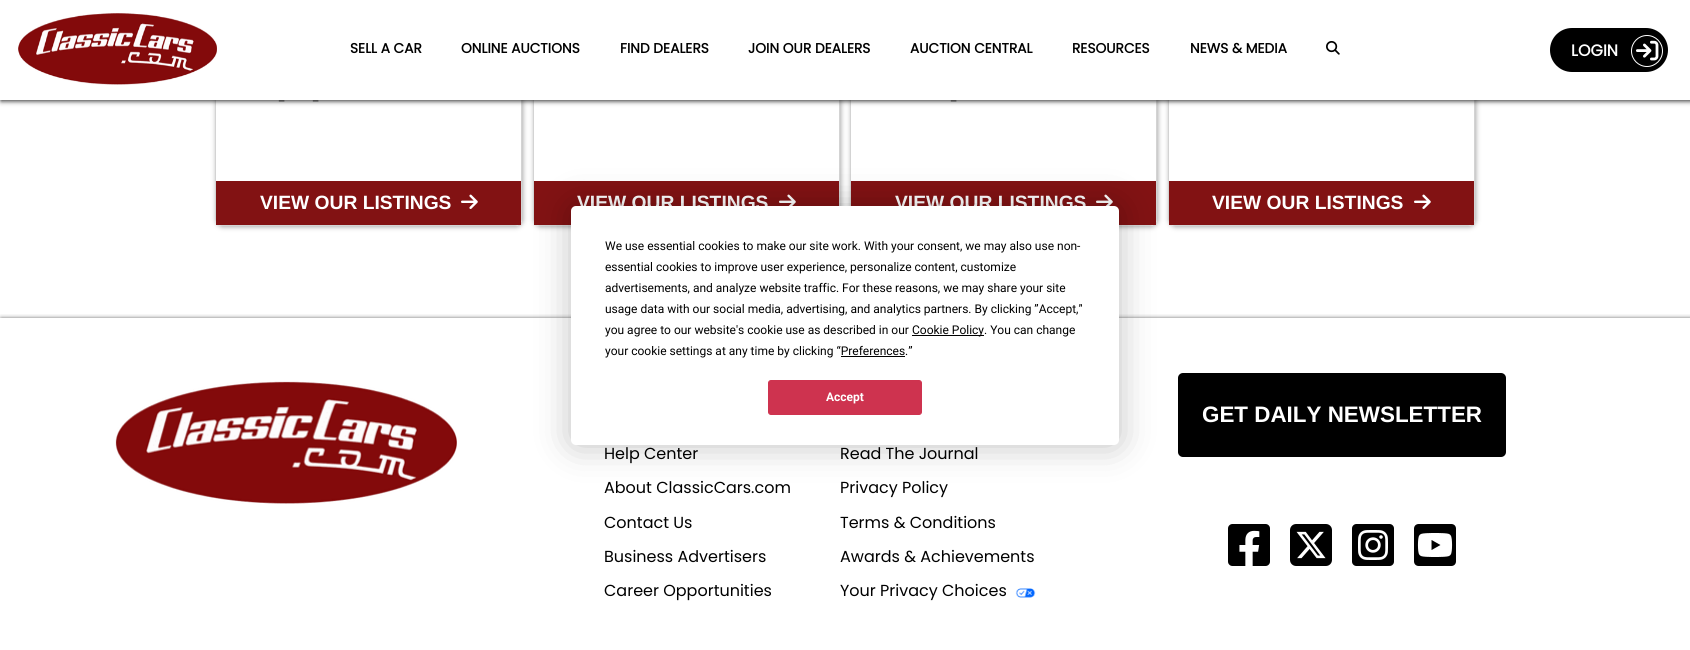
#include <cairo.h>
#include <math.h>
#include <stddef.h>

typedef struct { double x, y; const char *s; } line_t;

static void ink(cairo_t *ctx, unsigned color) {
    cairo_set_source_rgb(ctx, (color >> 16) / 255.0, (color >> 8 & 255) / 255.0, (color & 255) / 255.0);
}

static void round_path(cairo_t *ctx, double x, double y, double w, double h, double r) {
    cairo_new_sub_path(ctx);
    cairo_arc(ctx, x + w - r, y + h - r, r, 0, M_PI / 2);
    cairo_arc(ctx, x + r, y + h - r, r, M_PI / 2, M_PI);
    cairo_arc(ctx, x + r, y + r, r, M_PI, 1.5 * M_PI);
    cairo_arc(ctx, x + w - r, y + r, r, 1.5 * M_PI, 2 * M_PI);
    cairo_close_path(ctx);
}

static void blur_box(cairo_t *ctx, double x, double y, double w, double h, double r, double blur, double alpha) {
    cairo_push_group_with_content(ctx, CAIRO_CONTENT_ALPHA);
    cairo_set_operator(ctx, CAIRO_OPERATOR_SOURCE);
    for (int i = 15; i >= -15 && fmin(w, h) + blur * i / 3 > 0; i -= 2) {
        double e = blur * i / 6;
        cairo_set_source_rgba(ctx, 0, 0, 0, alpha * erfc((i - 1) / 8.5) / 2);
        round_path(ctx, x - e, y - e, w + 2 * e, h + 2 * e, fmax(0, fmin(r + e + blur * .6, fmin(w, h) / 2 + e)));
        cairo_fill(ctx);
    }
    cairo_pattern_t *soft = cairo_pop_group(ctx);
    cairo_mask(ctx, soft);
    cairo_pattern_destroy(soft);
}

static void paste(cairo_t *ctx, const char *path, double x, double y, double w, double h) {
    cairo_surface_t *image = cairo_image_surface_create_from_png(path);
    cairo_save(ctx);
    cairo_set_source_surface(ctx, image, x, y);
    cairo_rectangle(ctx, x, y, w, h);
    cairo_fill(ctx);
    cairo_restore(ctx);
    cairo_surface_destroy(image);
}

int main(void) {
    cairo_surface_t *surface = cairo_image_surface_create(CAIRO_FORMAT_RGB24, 1690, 650);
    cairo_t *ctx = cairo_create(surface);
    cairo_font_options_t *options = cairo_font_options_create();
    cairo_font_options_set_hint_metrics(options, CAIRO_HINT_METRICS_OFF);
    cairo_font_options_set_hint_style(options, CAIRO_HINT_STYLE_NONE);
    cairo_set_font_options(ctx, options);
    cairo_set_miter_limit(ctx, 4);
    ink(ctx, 0xFFFFFF);
    cairo_paint(ctx);
    cairo_save(ctx);
    cairo_set_fill_rule(ctx, CAIRO_FILL_RULE_EVEN_ODD);
    cairo_new_path(ctx);
    cairo_move_to(ctx, 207, 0);
    cairo_line_to(ctx, 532, 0);
    cairo_line_to(ctx, 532, 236);
    cairo_line_to(ctx, 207, 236);
    cairo_close_path(ctx);
    cairo_move_to(ctx, 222, -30);
    cairo_line_to(ctx, 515, -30);
    cairo_curve_to(ctx, 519, -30, 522, -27, 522, -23);
    cairo_line_to(ctx, 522, 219);
    cairo_curve_to(ctx, 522, 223, 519, 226, 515, 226);
    cairo_line_to(ctx, 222, 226);
    cairo_curve_to(ctx, 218, 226, 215, 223, 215, 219);
    cairo_line_to(ctx, 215, -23);
    cairo_curve_to(ctx, 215, -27, 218, -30, 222, -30);
    cairo_close_path(ctx);
    cairo_clip(ctx);
    ink(ctx, 0xA9A9A9);
    blur_box(ctx, 216, -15, 307, 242, 7, 2.5, 1);
    cairo_restore(ctx);
    round_path(ctx, 215.5, -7.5, 306, 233, 6.5);
    ink(ctx, 0xD3D3D3);
    cairo_set_line_width(ctx, 1);
    cairo_stroke(ctx);
    cairo_save(ctx);
    cairo_set_fill_rule(ctx, CAIRO_FILL_RULE_EVEN_ODD);
    cairo_new_path(ctx);
    cairo_move_to(ctx, 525, 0);
    cairo_line_to(ctx, 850, 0);
    cairo_line_to(ctx, 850, 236);
    cairo_line_to(ctx, 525, 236);
    cairo_close_path(ctx);
    cairo_move_to(ctx, 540, -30);
    cairo_line_to(ctx, 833, -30);
    cairo_curve_to(ctx, 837, -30, 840, -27, 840, -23);
    cairo_line_to(ctx, 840, 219);
    cairo_curve_to(ctx, 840, 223, 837, 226, 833, 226);
    cairo_line_to(ctx, 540, 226);
    cairo_curve_to(ctx, 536, 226, 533, 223, 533, 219);
    cairo_line_to(ctx, 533, -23);
    cairo_curve_to(ctx, 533, -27, 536, -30, 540, -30);
    cairo_close_path(ctx);
    cairo_clip(ctx);
    ink(ctx, 0xA9A9A9);
    blur_box(ctx, 534, -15, 307, 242, 7, 2.5, 1);
    cairo_restore(ctx);
    round_path(ctx, 533.5, -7.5, 306, 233, 6.5);
    cairo_stroke(ctx);
    cairo_save(ctx);
    cairo_set_fill_rule(ctx, CAIRO_FILL_RULE_EVEN_ODD);
    cairo_new_path(ctx);
    cairo_move_to(ctx, 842, 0);
    cairo_line_to(ctx, 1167, 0);
    cairo_line_to(ctx, 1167, 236);
    cairo_line_to(ctx, 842, 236);
    cairo_close_path(ctx);
    cairo_move_to(ctx, 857, -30);
    cairo_line_to(ctx, 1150, -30);
    cairo_curve_to(ctx, 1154, -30, 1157, -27, 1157, -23);
    cairo_line_to(ctx, 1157, 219);
    cairo_curve_to(ctx, 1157, 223, 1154, 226, 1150, 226);
    cairo_line_to(ctx, 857, 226);
    cairo_curve_to(ctx, 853, 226, 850, 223, 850, 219);
    cairo_line_to(ctx, 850, -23);
    cairo_curve_to(ctx, 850, -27, 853, -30, 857, -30);
    cairo_close_path(ctx);
    cairo_clip(ctx);
    ink(ctx, 0xA9A9A9);
    blur_box(ctx, 851, -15, 307, 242, 7, 2.5, 1);
    cairo_restore(ctx);
    round_path(ctx, 850.5, -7.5, 306, 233, 6.5);
    cairo_stroke(ctx);
    cairo_save(ctx);
    cairo_set_fill_rule(ctx, CAIRO_FILL_RULE_EVEN_ODD);
    cairo_new_path(ctx);
    cairo_move_to(ctx, 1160, 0);
    cairo_line_to(ctx, 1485, 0);
    cairo_line_to(ctx, 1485, 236);
    cairo_line_to(ctx, 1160, 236);
    cairo_close_path(ctx);
    cairo_move_to(ctx, 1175, -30);
    cairo_line_to(ctx, 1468, -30);
    cairo_curve_to(ctx, 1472, -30, 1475, -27, 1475, -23);
    cairo_line_to(ctx, 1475, 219);
    cairo_curve_to(ctx, 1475, 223, 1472, 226, 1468, 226);
    cairo_line_to(ctx, 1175, 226);
    cairo_curve_to(ctx, 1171, 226, 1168, 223, 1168, 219);
    cairo_line_to(ctx, 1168, -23);
    cairo_curve_to(ctx, 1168, -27, 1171, -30, 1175, -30);
    cairo_close_path(ctx);
    cairo_clip(ctx);
    ink(ctx, 0xA9A9A9);
    blur_box(ctx, 1169, -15, 307, 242, 7, 2.5, 1);
    cairo_restore(ctx);
    round_path(ctx, 1168.5, -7.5, 306, 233, 6.5);
    cairo_stroke(ctx);
    ink(ctx, 0x282828);
    blur_box(ctx, 1, 1, 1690, 100, 0, 2.5, 1);
    ink(ctx, 0xFFFFFF);
    cairo_rectangle(ctx, 0, 0, 1690, 100);
    cairo_fill(ctx);
    paste(ctx, "media/1.png", 18, 13, 199, 72);
    cairo_select_font_face(ctx, "Poppins", CAIRO_FONT_SLANT_NORMAL, CAIRO_FONT_WEIGHT_BOLD);
    cairo_set_font_size(ctx, 13.75);
    ink(ctx, 0x000000);
    {
        static const line_t items[] = {
            {350, 53, "SELL A CAR"},
            {461, 53, "ONLINE AUCTIONS"},
            {620, 53, "FIND DEALERS"},
            {748, 53, "JOIN OUR DEALERS"},
            {910, 53, "AUCTION CENTRAL"},
            {1072, 53, "RESOURCES"},
            {1190, 53, "NEWS & MEDIA"},
        };
        for (size_t i = 0; i < sizeof items / sizeof *items; i++) {
            cairo_move_to(ctx, items[i].x, items[i].y);
            cairo_show_text(ctx, items[i].s);
        }
    }
    paste(ctx, "media/2.png", 1326, 41, 14, 14);
    round_path(ctx, 1549, 27, 120, 46, 23);
    cairo_fill_preserve(ctx);
    ink(ctx, 0xFFFFFF);
    cairo_set_line_width(ctx, 2);
    cairo_stroke(ctx);
    cairo_set_font_size(ctx, 16);
    cairo_move_to(ctx, 1571, 56);
    cairo_show_text(ctx, "LOGIN");
    cairo_new_path(ctx);
    cairo_arc(ctx, 1647, 51, 15.5, 0, 2 * M_PI);
    cairo_set_line_width(ctx, 1);
    cairo_stroke(ctx);
    paste(ctx, "media/3.png", 1636, 40, 23, 21);
    cairo_select_font_face(ctx, "Poppins", CAIRO_FONT_SLANT_NORMAL, CAIRO_FONT_WEIGHT_NORMAL);
    cairo_set_font_size(ctx, 14);
    ink(ctx, 0x333333);
    cairo_move_to(ctx, 278, 106);
    cairo_show_text(ctx, "-");
    cairo_move_to(ctx, 312, 106);
    cairo_show_text(ctx, "-");
    ink(ctx, 0x821213);
    cairo_rectangle(ctx, 216, 181, 305, 44);
    cairo_fill(ctx);
    cairo_select_font_face(ctx, "Liberation Sans", CAIRO_FONT_SLANT_NORMAL, CAIRO_FONT_WEIGHT_BOLD);
    cairo_set_font_size(ctx, 19.25);
    ink(ctx, 0xFFFFFF);
    cairo_move_to(ctx, 260, 209);
    cairo_show_text(ctx, "VIEW OUR LISTINGS");
    paste(ctx, "media/4.png", 461, 194, 17, 15);
    ink(ctx, 0x821213);
    cairo_rectangle(ctx, 534, 181, 305, 44);
    cairo_fill(ctx);
    ink(ctx, 0xFFFFFF);
    cairo_move_to(ctx, 577, 209);
    cairo_show_text(ctx, "VIEW OUR LISTINGS");
    paste(ctx, "media/5.png", 779, 194, 17, 12);
    cairo_select_font_face(ctx, "Poppins", CAIRO_FONT_SLANT_NORMAL, CAIRO_FONT_WEIGHT_NORMAL);
    cairo_set_font_size(ctx, 14);
    ink(ctx, 0x333333);
    cairo_move_to(ctx, 950, 106);
    cairo_show_text(ctx, "-");
    ink(ctx, 0x821213);
    cairo_rectangle(ctx, 851, 181, 305, 44);
    cairo_fill(ctx);
    cairo_select_font_face(ctx, "Liberation Sans", CAIRO_FONT_SLANT_NORMAL, CAIRO_FONT_WEIGHT_BOLD);
    cairo_set_font_size(ctx, 19.25);
    ink(ctx, 0xFFFFFF);
    cairo_move_to(ctx, 895, 209);
    cairo_show_text(ctx, "VIEW OUR LISTINGS");
    paste(ctx, "media/5.png", 1096, 194, 17, 12);
    ink(ctx, 0x821213);
    cairo_rectangle(ctx, 1169, 181, 305, 44);
    cairo_fill(ctx);
    ink(ctx, 0xFFFFFF);
    cairo_move_to(ctx, 1212, 209);
    cairo_show_text(ctx, "VIEW OUR LISTINGS");
    paste(ctx, "media/4.png", 1414, 194, 17, 15);
    ink(ctx, 0x000000);
    blur_box(ctx, 571, 206, 548, 239, 5, 17.5, 0.25);
    cairo_save(ctx);
    cairo_rectangle(ctx, 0, 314, 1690, 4);
    cairo_clip(ctx);
    ink(ctx, 0x282828);
    blur_box(ctx, 1, 319, 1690, 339, 0, 2.5, 1);
    cairo_restore(ctx);
    ink(ctx, 0xFFFFFF);
    round_path(ctx, 571, 206, 548, 239, 5);
    cairo_fill(ctx);
    cairo_select_font_face(ctx, "Roboto", CAIRO_FONT_SLANT_NORMAL, CAIRO_FONT_WEIGHT_NORMAL);
    cairo_set_font_size(ctx, 12);
    ink(ctx, 0x000000);
    {
        static const line_t items[] = {
            {605, 250, "We use essential cookies to make our site work. With your consent, we may also use non-"},
            {605, 271, "essential cookies to improve user experience, personalize content, customize"},
            {605, 292, "advertisements, and analyze website traffic. For these reasons, we may share your site"},
            {605, 313, "usage data with our social media, advertising, and analytics partners. By clicking ”Accept,”"},
            {605, 334, "you agree to our website's cookie use as described in our"},
        };
        for (size_t i = 0; i < sizeof items / sizeof *items; i++) {
            cairo_move_to(ctx, items[i].x, items[i].y);
            cairo_show_text(ctx, items[i].s);
        }
    }
    cairo_rectangle(ctx, 912, 335, 72, 1);
    cairo_fill(ctx);
    {
        static const line_t items[] = {
            {912, 334, "Cookie Policy"},
            {984, 334, ". You can change"},
            {605, 355, "your cookie settings at any time by clicking “Preferences"},
            {905, 355, ".”"},
        };
        for (size_t i = 0; i < sizeof items / sizeof *items; i++) {
            cairo_move_to(ctx, items[i].x, items[i].y);
            cairo_show_text(ctx, items[i].s);
        }
    }
    cairo_rectangle(ctx, 841, 356, 64, 1);
    cairo_fill(ctx);
    ink(ctx, 0xCE334F);
    round_path(ctx, 768.5, 380.5, 153, 34, 2.5);
    cairo_fill_preserve(ctx);
    cairo_stroke(ctx);
    cairo_select_font_face(ctx, "Roboto", CAIRO_FONT_SLANT_NORMAL, CAIRO_FONT_WEIGHT_BOLD);
    ink(ctx, 0xFFFFFF);
    cairo_move_to(ctx, 826, 401);
    cairo_show_text(ctx, "Accept");
    paste(ctx, "media/6.png", 115, 381, 342, 123);
    ink(ctx, 0x000000);
    round_path(ctx, 1178, 373, 328, 84, 5);
    cairo_fill(ctx);
    cairo_select_font_face(ctx, "Liberation Sans", CAIRO_FONT_SLANT_NORMAL, CAIRO_FONT_WEIGHT_BOLD);
    cairo_set_font_size(ctx, 22.4);
    ink(ctx, 0xFFFFFF);
    cairo_move_to(ctx, 1202, 422);
    cairo_show_text(ctx, "GET DAILY NEWSLETTER");
    paste(ctx, "media/7.png", 1228, 524, 42, 42);
    paste(ctx, "media/8.png", 1290, 524, 42, 42);
    paste(ctx, "media/9.png", 1352, 524, 42, 42);
    paste(ctx, "media/10.png", 1414, 524, 42, 42);
    cairo_select_font_face(ctx, "Poppins", CAIRO_FONT_SLANT_NORMAL, CAIRO_FONT_WEIGHT_NORMAL);
    cairo_set_font_size(ctx, 16);
    ink(ctx, 0x000000);
    {
        static const line_t items[] = {
            {604, 459, "Help Center"},
            {604, 493, "About ClassicCars.com"},
            {604, 528, "Contact Us"},
            {604, 562, "Business Advertisers"},
            {604, 596, "Career Opportunities"},
            {840, 459, "Read The Journal"},
            {840, 493, "Privacy Policy"},
            {840, 528, "Terms & Conditions"},
            {840, 562, "Awards & Achievements"},
            {840, 596, "Your Privacy Choices"},
        };
        for (size_t i = 0; i < sizeof items / sizeof *items; i++) {
            cairo_move_to(ctx, items[i].x, items[i].y);
            cairo_show_text(ctx, items[i].s);
        }
    }
    paste(ctx, "media/11.png", 1015, 588, 21, 10);
    cairo_surface_write_to_png(surface, "image.png");
    cairo_font_options_destroy(options);
    cairo_destroy(ctx);
    cairo_surface_destroy(surface);
    return 0;
}
